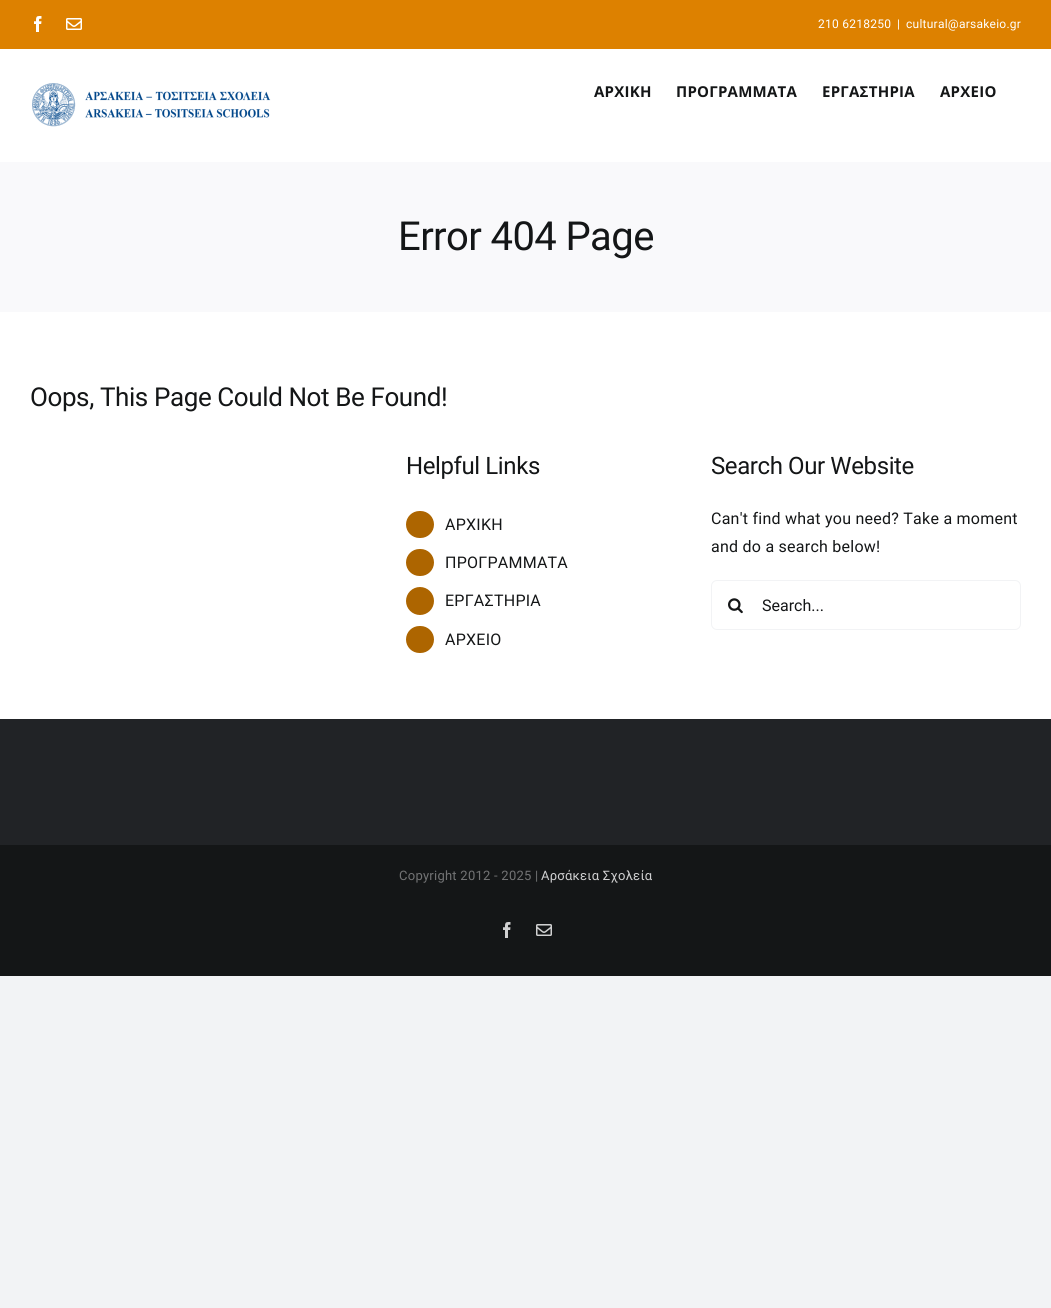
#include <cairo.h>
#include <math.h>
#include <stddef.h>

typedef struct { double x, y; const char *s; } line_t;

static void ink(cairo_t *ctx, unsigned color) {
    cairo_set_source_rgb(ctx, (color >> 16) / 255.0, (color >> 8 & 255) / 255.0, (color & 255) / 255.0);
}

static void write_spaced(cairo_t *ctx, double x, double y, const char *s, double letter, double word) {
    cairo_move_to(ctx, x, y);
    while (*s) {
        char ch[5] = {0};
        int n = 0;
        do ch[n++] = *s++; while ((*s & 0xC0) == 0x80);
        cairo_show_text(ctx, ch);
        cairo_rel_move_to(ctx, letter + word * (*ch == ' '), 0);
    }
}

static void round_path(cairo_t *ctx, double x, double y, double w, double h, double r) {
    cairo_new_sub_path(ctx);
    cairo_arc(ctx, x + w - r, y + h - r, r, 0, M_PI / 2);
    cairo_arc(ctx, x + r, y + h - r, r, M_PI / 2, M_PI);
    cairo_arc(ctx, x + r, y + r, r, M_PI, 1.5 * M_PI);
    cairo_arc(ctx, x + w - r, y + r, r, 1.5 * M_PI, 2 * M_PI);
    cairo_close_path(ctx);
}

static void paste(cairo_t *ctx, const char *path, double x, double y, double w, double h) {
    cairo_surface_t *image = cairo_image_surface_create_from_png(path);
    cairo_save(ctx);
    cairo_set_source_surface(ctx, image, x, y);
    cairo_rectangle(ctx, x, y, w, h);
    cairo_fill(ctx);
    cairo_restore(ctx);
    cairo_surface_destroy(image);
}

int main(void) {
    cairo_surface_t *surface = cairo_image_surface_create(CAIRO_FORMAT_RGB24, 1051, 1308);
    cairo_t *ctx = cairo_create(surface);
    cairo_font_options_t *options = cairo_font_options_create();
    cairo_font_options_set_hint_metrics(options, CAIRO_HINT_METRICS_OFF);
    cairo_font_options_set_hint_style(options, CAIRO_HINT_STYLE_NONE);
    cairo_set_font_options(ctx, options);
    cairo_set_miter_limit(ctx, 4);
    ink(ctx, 0xF2F3F5);
    cairo_paint(ctx);
    ink(ctx, 0xDD8100);
    cairo_rectangle(ctx, 0, 0, 1051, 49);
    cairo_fill(ctx);
    paste(ctx, "media/1.png", 34, 16, 8, 16);
    paste(ctx, "media/2.png", 66, 18, 16, 12);
    cairo_select_font_face(ctx, "Roboto", CAIRO_FONT_SLANT_NORMAL, CAIRO_FONT_WEIGHT_NORMAL);
    cairo_set_font_size(ctx, 12);
    ink(ctx, 0xFFFFFF);
    {
        static const line_t items[] = {
            {818, 28, "210 6218250"},
            {897, 28, "|"},
            {906, 28, "cultural@arsakeio.gr"},
        };
        for (size_t i = 0; i < sizeof items / sizeof *items; i++) {
            write_spaced(ctx, items[i].x, items[i].y, items[i].s, 0.25, 0);
        }
    }
    cairo_rectangle(ctx, 0, 49, 1051, 113);
    cairo_fill(ctx);
    paste(ctx, "media/3.png", 32, 83, 239, 44);
    cairo_select_font_face(ctx, "Open Sans", CAIRO_FONT_SLANT_NORMAL, CAIRO_FONT_WEIGHT_BOLD);
    cairo_set_font_size(ctx, 15);
    ink(ctx, 0x141617);
    {
        static const line_t items[] = {
            {594, 97, "ΑΡΧΙΚΗ"},
            {676, 97, "ΠΡΟΓΡΑΜΜΑΤΑ"},
            {822, 97, "ΕΡΓΑΣΤΗΡΙΑ"},
            {940, 97, "ΑΡΧΕΙΟ"},
        };
        for (size_t i = 0; i < sizeof items / sizeof *items; i++) {
            write_spaced(ctx, items[i].x, items[i].y, items[i].s, 0.25, 0);
        }
    }
    ink(ctx, 0xF9F9FB);
    cairo_rectangle(ctx, 0, 162, 1051, 150);
    cairo_fill(ctx);
    cairo_select_font_face(ctx, "Roboto", CAIRO_FONT_SLANT_NORMAL, CAIRO_FONT_WEIGHT_NORMAL);
    cairo_set_font_size(ctx, 40);
    ink(ctx, 0x141617);
    write_spaced(ctx, 398, 250, "Error 404 Page", -0.6, 0);
    ink(ctx, 0xFFFFFF);
    cairo_rectangle(ctx, 0, 312, 1051, 407);
    cairo_fill(ctx);
    cairo_set_font_size(ctx, 26);
    ink(ctx, 0x141617);
    write_spaced(ctx, 30, 406, "Oops, This Page Could Not Be Found!", -0.4, 0);
    cairo_set_font_size(ctx, 24);
    write_spaced(ctx, 406, 474, "Helpful Links", -0.4, 0);
    ink(ctx, 0xAD6500);
    round_path(ctx, 406, 511, 28, 27, 13.5);
    cairo_fill(ctx);
    cairo_set_font_size(ctx, 16);
    ink(ctx, 0x141617);
    write_spaced(ctx, 445, 530, "ΑΡΧΙΚΗ", 0.25, 0);
    ink(ctx, 0xAD6500);
    round_path(ctx, 406, 549, 28, 27, 13.5);
    cairo_fill(ctx);
    ink(ctx, 0x141617);
    write_spaced(ctx, 445, 568, "ΠΡΟΓΡΑΜΜΑΤΑ", 0.25, 0);
    ink(ctx, 0xAD6500);
    cairo_new_path(ctx);
    cairo_arc(ctx, 420, 601, 14, 0, 2 * M_PI);
    cairo_fill(ctx);
    ink(ctx, 0x141617);
    write_spaced(ctx, 445, 606, "ΕΡΓΑΣΤΗΡΙΑ", 0.25, 0);
    ink(ctx, 0xAD6500);
    round_path(ctx, 406, 626, 28, 27, 13.5);
    cairo_fill(ctx);
    ink(ctx, 0x141617);
    write_spaced(ctx, 445, 645, "ΑΡΧΕΙΟ", 0.25, 0);
    cairo_set_font_size(ctx, 24);
    write_spaced(ctx, 711, 474, "Search Our Website", -0.4, 0);
    cairo_set_font_size(ctx, 16);
    write_spaced(ctx, 711, 524, "Can't find what you need? Take a moment", 0.25, 0);
    write_spaced(ctx, 711, 552, "and do a search below!", 0.25, 0);
    round_path(ctx, 711.5, 580.5, 309, 49, 5.5);
    ink(ctx, 0xF2F3F5);
    cairo_set_line_width(ctx, 1);
    cairo_stroke(ctx);
    paste(ctx, "media/4.png", 728, 598, 15, 16);
    ink(ctx, 0x141617);
    cairo_move_to(ctx, 762, 611);
    cairo_show_text(ctx, "Search...");
    ink(ctx, 0x212326);
    cairo_rectangle(ctx, 0, 719, 1051, 126);
    cairo_fill(ctx);
    ink(ctx, 0x141617);
    cairo_rectangle(ctx, 0, 845, 1051, 131);
    cairo_fill(ctx);
    cairo_set_font_size(ctx, 13);
    ink(ctx, 0x727374);
    write_spaced(ctx, 399, 880, "Copyright 2012 - 2025 |", 0.25, 0);
    ink(ctx, 0xD0D0D1);
    write_spaced(ctx, 541, 880, "Αρσάκεια Σχολεία", 0.25, 0);
    paste(ctx, "media/5.png", 503, 922, 8, 16);
    paste(ctx, "media/6.png", 536, 924, 16, 12);
    cairo_surface_write_to_png(surface, "image.png");
    cairo_font_options_destroy(options);
    cairo_destroy(ctx);
    cairo_surface_destroy(surface);
    return 0;
}
